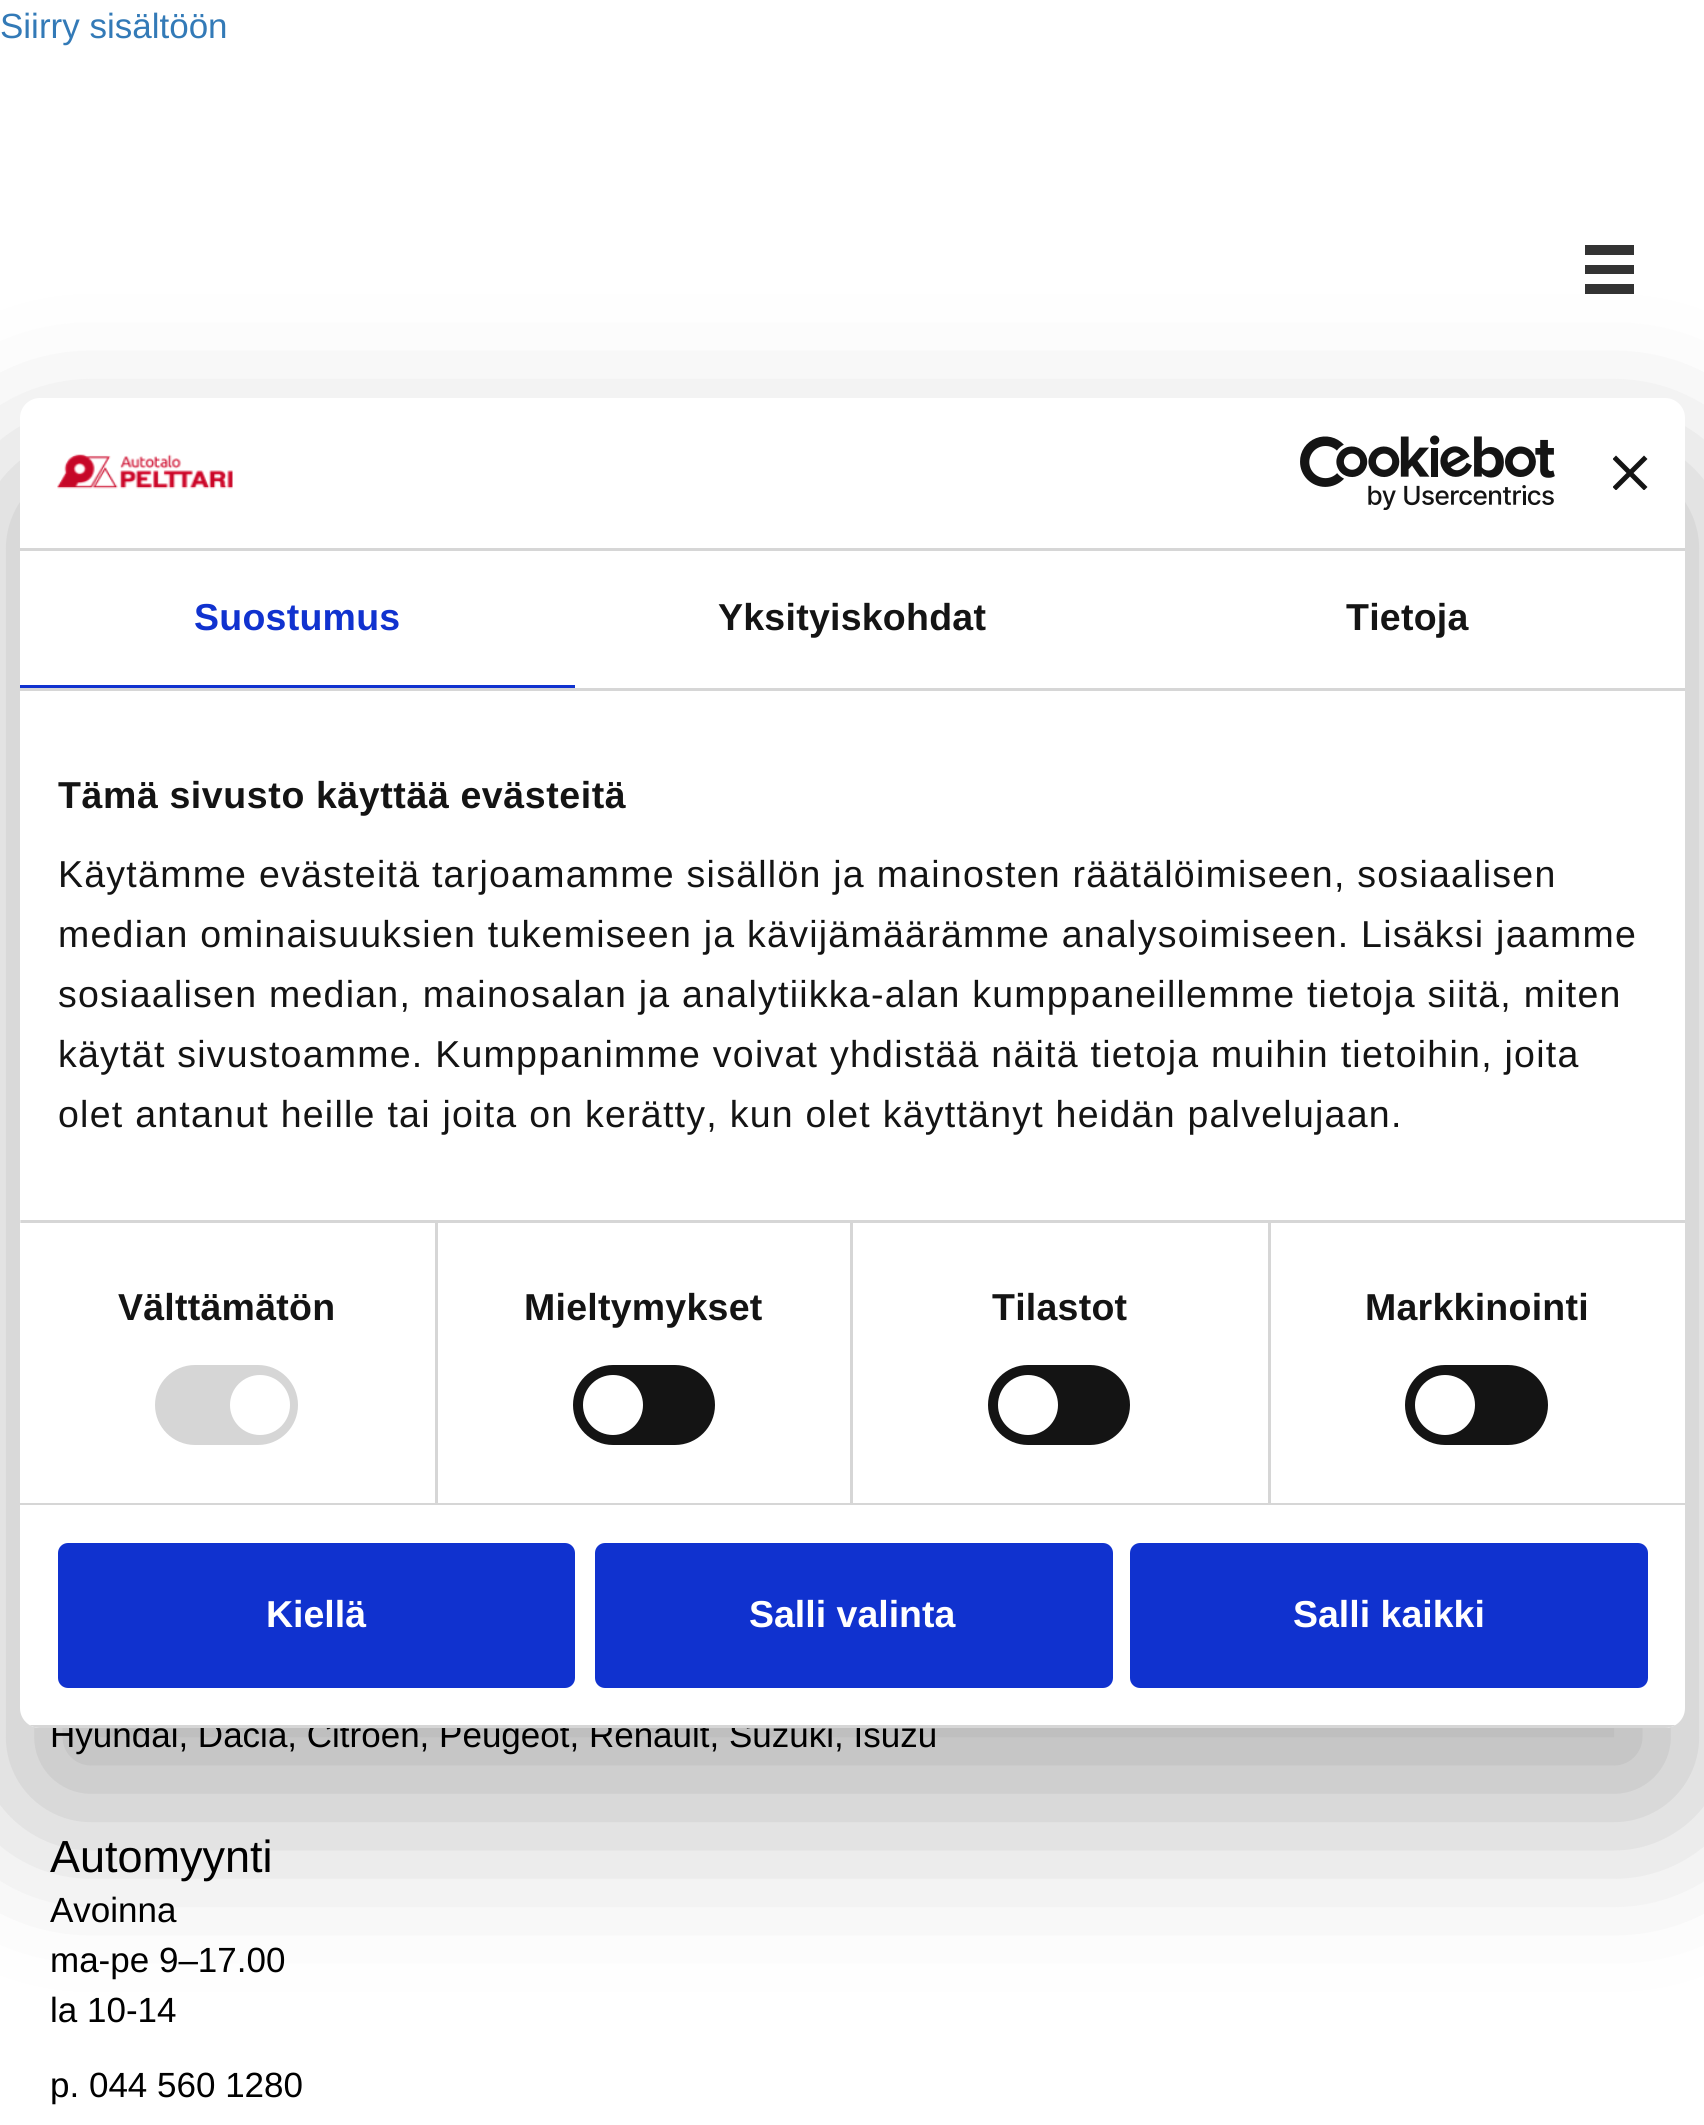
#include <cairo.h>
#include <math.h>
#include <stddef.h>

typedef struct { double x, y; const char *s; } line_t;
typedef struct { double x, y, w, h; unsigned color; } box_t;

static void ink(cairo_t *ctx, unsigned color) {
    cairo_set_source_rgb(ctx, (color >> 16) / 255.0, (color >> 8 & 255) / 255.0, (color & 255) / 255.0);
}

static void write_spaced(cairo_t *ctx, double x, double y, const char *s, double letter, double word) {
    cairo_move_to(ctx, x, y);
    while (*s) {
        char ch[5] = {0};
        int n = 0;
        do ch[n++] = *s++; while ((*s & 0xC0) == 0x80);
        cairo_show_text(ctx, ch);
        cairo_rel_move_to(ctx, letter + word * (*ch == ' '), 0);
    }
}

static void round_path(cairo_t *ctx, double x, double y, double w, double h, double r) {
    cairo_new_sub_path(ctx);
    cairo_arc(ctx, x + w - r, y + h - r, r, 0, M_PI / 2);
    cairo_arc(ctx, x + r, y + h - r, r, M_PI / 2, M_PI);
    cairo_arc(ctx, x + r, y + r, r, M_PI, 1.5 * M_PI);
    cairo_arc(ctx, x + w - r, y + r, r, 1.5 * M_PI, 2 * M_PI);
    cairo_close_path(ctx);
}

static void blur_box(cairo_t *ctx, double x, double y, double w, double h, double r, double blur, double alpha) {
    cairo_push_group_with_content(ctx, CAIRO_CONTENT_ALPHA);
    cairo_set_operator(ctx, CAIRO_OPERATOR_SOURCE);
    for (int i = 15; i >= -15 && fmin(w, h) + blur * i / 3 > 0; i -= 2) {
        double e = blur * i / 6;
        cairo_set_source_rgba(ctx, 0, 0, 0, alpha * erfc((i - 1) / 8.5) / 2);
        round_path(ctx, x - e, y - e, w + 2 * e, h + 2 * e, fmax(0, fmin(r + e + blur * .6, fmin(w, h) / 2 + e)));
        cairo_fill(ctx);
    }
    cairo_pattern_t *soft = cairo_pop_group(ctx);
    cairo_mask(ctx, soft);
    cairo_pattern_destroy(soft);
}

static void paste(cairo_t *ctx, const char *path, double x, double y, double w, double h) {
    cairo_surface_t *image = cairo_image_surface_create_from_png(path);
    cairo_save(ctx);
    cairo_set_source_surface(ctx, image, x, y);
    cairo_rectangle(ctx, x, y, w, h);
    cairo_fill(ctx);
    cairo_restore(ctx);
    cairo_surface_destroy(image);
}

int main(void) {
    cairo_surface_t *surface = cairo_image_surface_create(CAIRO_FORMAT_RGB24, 1704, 2125);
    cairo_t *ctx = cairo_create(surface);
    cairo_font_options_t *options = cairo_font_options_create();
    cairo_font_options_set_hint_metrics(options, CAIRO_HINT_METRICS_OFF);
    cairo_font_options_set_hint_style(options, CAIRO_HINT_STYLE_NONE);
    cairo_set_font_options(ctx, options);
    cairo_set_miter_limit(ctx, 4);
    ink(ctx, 0xFFFFFF);
    cairo_paint(ctx);
    cairo_select_font_face(ctx, "Liberation Sans", CAIRO_FONT_SLANT_NORMAL, CAIRO_FONT_WEIGHT_NORMAL);
    cairo_set_font_size(ctx, 35);
    ink(ctx, 0x337AB7);
    cairo_move_to(ctx, 0, 38);
    cairo_show_text(ctx, "Siirry sisältöön");
    {
        static const box_t items[] = {
            {1585, 245, 49, 10, 0x333333},
            {1585, 265, 49, 9, 0x333333},
            {1585, 284, 49, 10, 0x333333},
        };
        for (size_t i = 0; i < sizeof items / sizeof *items; i++) {
            ink(ctx, items[i].color);
            cairo_rectangle(ctx, items[i].x, items[i].y, items[i].w, items[i].h);
            cairo_fill(ctx);
        }
    }
    ink(ctx, 0x000000);
    blur_box(ctx, 20, 478, 1665, 1330, 20, 85, 0.3);
    ink(ctx, 0x000000);
    cairo_move_to(ctx, 50, 1747);
    cairo_show_text(ctx, "Hyundai, Dacia, Citroën, Peugeot, Renault, Suzuki, Isuzu");
    ink(ctx, 0xFFFFFF);
    round_path(ctx, 20, 398, 1665, 1330, 20);
    cairo_fill(ctx);
    ink(ctx, 0xD6D6D6);
    cairo_rectangle(ctx, 20, 548, 1665, 3);
    cairo_fill(ctx);
    paste(ctx, "media/1.png", 57, 454, 176, 35);
    paste(ctx, "media/2.png", 1300, 435, 255, 75);
    cairo_save(ctx);
    cairo_rectangle(ctx, 1613, 455, 35, 35);
    cairo_clip(ctx);
    ink(ctx, 0x141414);
    cairo_new_path(ctx);
    cairo_move_to(ctx, 1647.5, 459);
    cairo_line_to(ctx, 1644, 455.5);
    cairo_line_to(ctx, 1630, 469.5);
    cairo_line_to(ctx, 1616, 455.5);
    cairo_line_to(ctx, 1612.5, 459);
    cairo_line_to(ctx, 1626.5, 473);
    cairo_line_to(ctx, 1612.5, 487);
    cairo_line_to(ctx, 1616, 490.5);
    cairo_line_to(ctx, 1630, 476.5);
    cairo_line_to(ctx, 1644, 490.5);
    cairo_line_to(ctx, 1647.5, 487);
    cairo_line_to(ctx, 1633.5, 473);
    cairo_close_path(ctx);
    cairo_fill(ctx);
    cairo_restore(ctx);
    cairo_rectangle(ctx, 20, 688, 1665, 3);
    cairo_fill(ctx);
    ink(ctx, 0x1032CF);
    cairo_rectangle(ctx, 20, 685, 555, 3);
    cairo_fill(ctx);
    cairo_select_font_face(ctx, "Liberation Sans", CAIRO_FONT_SLANT_NORMAL, CAIRO_FONT_WEIGHT_BOLD);
    cairo_set_font_size(ctx, 37.5);
    write_spaced(ctx, 194, 630, "Suostumus", 0.25, 0);
    ink(ctx, 0x141414);
    write_spaced(ctx, 718, 630, "Yksityiskohdat", 0.25, 0);
    write_spaced(ctx, 1346, 630, "Tietoja", 0.25, 0);
    ink(ctx, 0xD6D6D6);
    cairo_rectangle(ctx, 20, 1220, 1665, 3);
    cairo_fill(ctx);
    ink(ctx, 0x141414);
    write_spaced(ctx, 58, 808, "Tämä sivusto käyttää evästeitä", 0.6, 0);
    cairo_select_font_face(ctx, "Liberation Sans", CAIRO_FONT_SLANT_NORMAL, CAIRO_FONT_WEIGHT_NORMAL);
    {
        static const line_t items[] = {
            {58, 887, "Käytämme evästeitä tarjoamamme sisällön ja mainosten räätälöimiseen, sosiaalisen"},
            {58, 947, "median ominaisuuksien tukemiseen ja kävijämäärämme analysoimiseen. Lisäksi jaamme"},
            {58, 1007, "sosiaalisen median, mainosalan ja analytiikka-alan kumppaneillemme tietoja siitä, miten"},
            {58, 1067, "käytät sivustoamme. Kumppanimme voivat yhdistää näitä tietoja muihin tietoihin, joita"},
            {58, 1127, "olet antanut heille tai joita on kerätty, kun olet käyttänyt heidän palvelujaan."},
        };
        for (size_t i = 0; i < sizeof items / sizeof *items; i++) {
            write_spaced(ctx, items[i].x, items[i].y, items[i].s, 1.25, 0);
        }
    }
    {
        static const box_t items[] = {
            {20, 1503, 1665, 2, 0xD6D6D6},
            {20, 1220, 1, 3, 0xE5E5E5},
            {435, 1223, 3, 280, 0xD6D6D6},
        };
        for (size_t i = 0; i < sizeof items / sizeof *items; i++) {
            ink(ctx, items[i].color);
            cairo_rectangle(ctx, items[i].x, items[i].y, items[i].w, items[i].h);
            cairo_fill(ctx);
        }
    }
    cairo_select_font_face(ctx, "Liberation Sans", CAIRO_FONT_SLANT_NORMAL, CAIRO_FONT_WEIGHT_BOLD);
    ink(ctx, 0x141414);
    write_spaced(ctx, 118, 1320, "Välttämätön", 0.25, 0);
    ink(ctx, 0xD6D6D6);
    round_path(ctx, 155, 1365, 143, 80, 40);
    cairo_fill(ctx);
    ink(ctx, 0xFFFFFF);
    cairo_arc(ctx, 260, 1405, 30, 0, 2 * M_PI);
    cairo_fill(ctx);
    ink(ctx, 0xD6D6D6);
    cairo_rectangle(ctx, 850, 1223, 3, 280);
    cairo_fill(ctx);
    ink(ctx, 0x141414);
    write_spaced(ctx, 524, 1320, "Mieltymykset", 0.25, 0);
    round_path(ctx, 573, 1365, 142, 80, 40);
    cairo_fill(ctx);
    ink(ctx, 0xFFFFFF);
    cairo_arc(ctx, 613, 1405, 30, 0, 2 * M_PI);
    cairo_fill(ctx);
    ink(ctx, 0xD6D6D6);
    cairo_rectangle(ctx, 1268, 1223, 3, 280);
    cairo_fill(ctx);
    ink(ctx, 0x141414);
    write_spaced(ctx, 992, 1320, "Tilastot", 0.25, 0);
    round_path(ctx, 988, 1365, 142, 80, 40);
    cairo_fill(ctx);
    ink(ctx, 0xFFFFFF);
    cairo_arc(ctx, 1028, 1405, 30, 0, 2 * M_PI);
    cairo_fill(ctx);
    ink(ctx, 0x141414);
    write_spaced(ctx, 1365, 1320, "Markkinointi", 0.25, 0);
    round_path(ctx, 1405, 1365, 143, 80, 40);
    cairo_fill(ctx);
    ink(ctx, 0xFFFFFF);
    cairo_arc(ctx, 1445, 1405, 30, 0, 2 * M_PI);
    cairo_fill(ctx);
    cairo_save(ctx);
    round_path(ctx, 20, 398, 1665, 1330, 20);
    cairo_clip(ctx);
    ink(ctx, 0xD6D6D6);
    cairo_rectangle(ctx, 29, 1725, 1647, 3);
    cairo_fill(ctx);
    cairo_restore(ctx);
    ink(ctx, 0x1032CF);
    round_path(ctx, 60.5, 1545.5, 512, 140, 7.5);
    cairo_fill_preserve(ctx);
    cairo_set_line_width(ctx, 5);
    cairo_stroke(ctx);
    ink(ctx, 0xFFFFFF);
    cairo_move_to(ctx, 266, 1627);
    cairo_show_text(ctx, "Kiellä");
    ink(ctx, 0x1032CF);
    round_path(ctx, 597.5, 1545.5, 513, 140, 7.5);
    cairo_fill_preserve(ctx);
    cairo_stroke(ctx);
    ink(ctx, 0xFFFFFF);
    cairo_move_to(ctx, 749, 1627);
    cairo_show_text(ctx, "Salli valinta");
    ink(ctx, 0x1032CF);
    round_path(ctx, 1132.5, 1545.5, 513, 140, 7.5);
    cairo_fill_preserve(ctx);
    cairo_stroke(ctx);
    ink(ctx, 0xFFFFFF);
    cairo_move_to(ctx, 1293, 1627);
    cairo_show_text(ctx, "Salli kaikki");
    cairo_select_font_face(ctx, "Liberation Sans", CAIRO_FONT_SLANT_NORMAL, CAIRO_FONT_WEIGHT_NORMAL);
    cairo_set_font_size(ctx, 45);
    ink(ctx, 0x000000);
    cairo_move_to(ctx, 50, 1872);
    cairo_show_text(ctx, "Automyynti");
    cairo_set_font_size(ctx, 35);
    {
        static const line_t items[] = {
            {50, 1922, "Avoinna"},
            {50, 1972, "ma-pe 9–17.00"},
            {50, 2022, "la 10-14"},
            {50, 2097, "p. 044 560 1280"},
        };
        for (size_t i = 0; i < sizeof items / sizeof *items; i++) {
            cairo_move_to(ctx, items[i].x, items[i].y);
            cairo_show_text(ctx, items[i].s);
        }
    }
    cairo_surface_write_to_png(surface, "image.png");
    cairo_font_options_destroy(options);
    cairo_destroy(ctx);
    cairo_surface_destroy(surface);
    return 0;
}
